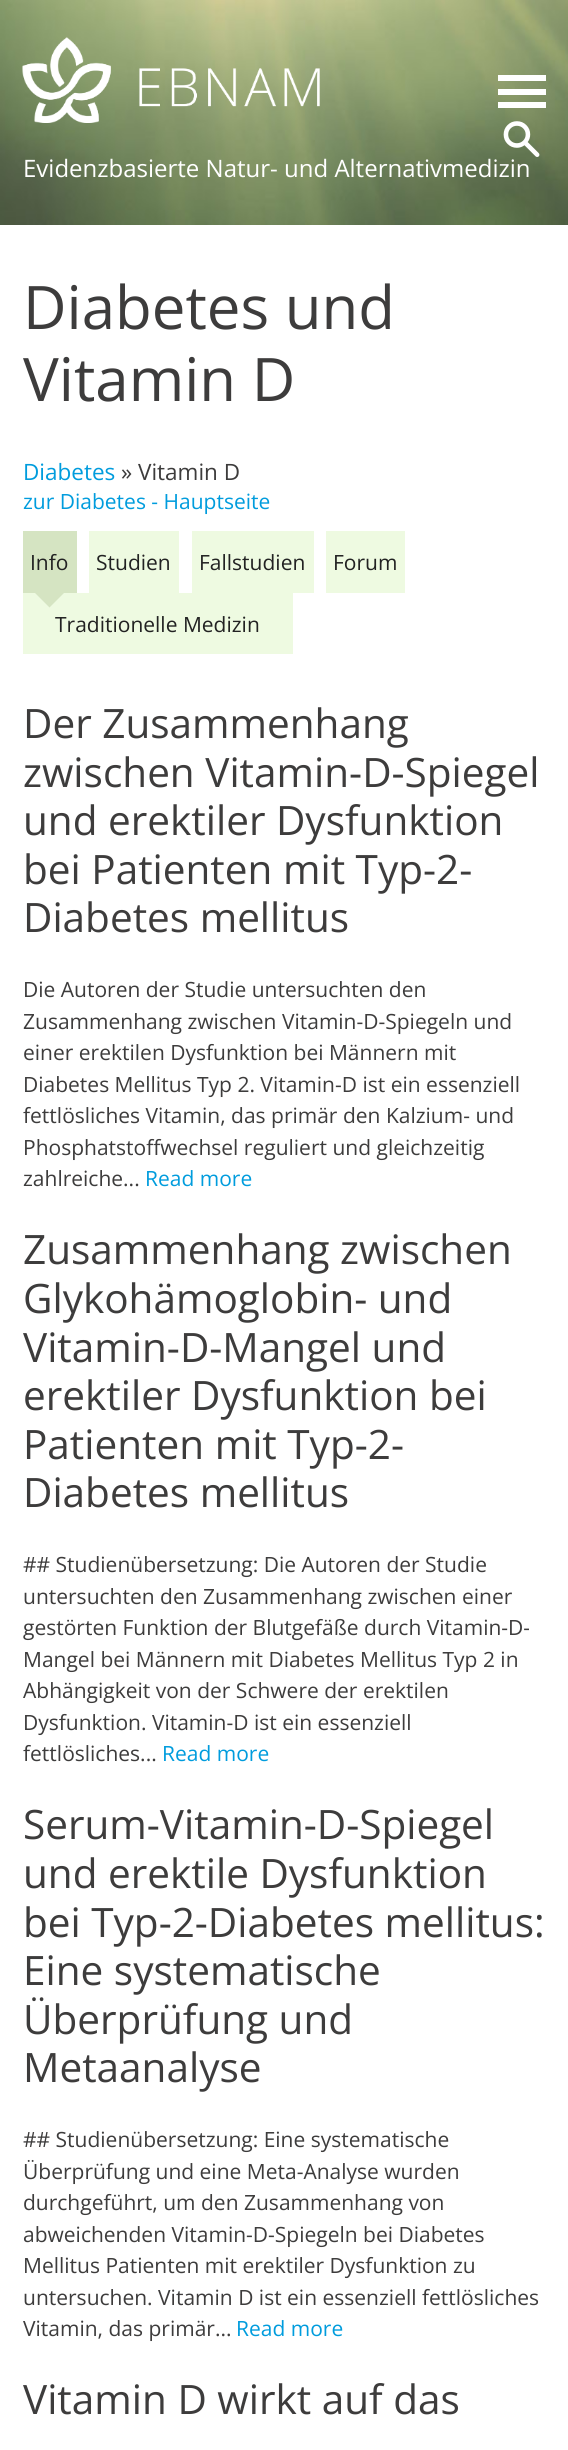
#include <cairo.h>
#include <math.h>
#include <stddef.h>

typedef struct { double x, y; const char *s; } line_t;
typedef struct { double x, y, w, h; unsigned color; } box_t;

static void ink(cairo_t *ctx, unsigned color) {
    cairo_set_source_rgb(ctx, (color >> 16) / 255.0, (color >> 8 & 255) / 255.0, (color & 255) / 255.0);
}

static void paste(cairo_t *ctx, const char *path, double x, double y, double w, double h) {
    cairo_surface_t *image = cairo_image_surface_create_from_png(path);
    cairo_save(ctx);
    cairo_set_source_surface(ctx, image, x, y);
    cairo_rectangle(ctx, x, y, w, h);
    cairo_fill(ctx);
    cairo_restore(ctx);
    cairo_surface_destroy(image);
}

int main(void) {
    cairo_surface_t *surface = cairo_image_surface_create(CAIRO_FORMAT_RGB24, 568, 2450);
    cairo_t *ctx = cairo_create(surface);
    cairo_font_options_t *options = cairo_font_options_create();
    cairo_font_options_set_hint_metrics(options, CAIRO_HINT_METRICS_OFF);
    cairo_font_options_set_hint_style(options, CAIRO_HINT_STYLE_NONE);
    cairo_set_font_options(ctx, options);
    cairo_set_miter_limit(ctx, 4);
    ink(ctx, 0xFFFFFF);
    cairo_paint(ctx);
    paste(ctx, "media/1.png", 0, 0, 568, 225);
    {
        static const box_t items[] = {
            {498, 75, 48, 6, 0xFFFFFF},
            {498, 89, 48, 6, 0xFFFFFF},
            {498, 102, 48, 6, 0xFFFFFF},
        };
        for (size_t i = 0; i < sizeof items / sizeof *items; i++) {
            ink(ctx, items[i].color);
            cairo_rectangle(ctx, items[i].x, items[i].y, items[i].w, items[i].h);
            cairo_fill(ctx);
        }
    }
    paste(ctx, "media/2.png", 503, 121, 37, 36);
    paste(ctx, "media/3.png", 22, 37, 298, 86);
    cairo_select_font_face(ctx, "Open Sans", CAIRO_FONT_SLANT_NORMAL, CAIRO_FONT_WEIGHT_NORMAL);
    cairo_set_font_size(ctx, 24);
    cairo_move_to(ctx, 23, 177);
    cairo_show_text(ctx, "Evidenzbasierte Natur- und Alternativmedizin");
    cairo_set_font_size(ctx, 60);
    ink(ctx, 0x3D3C3C);
    cairo_move_to(ctx, 23, 329);
    cairo_show_text(ctx, "Diabetes und");
    cairo_move_to(ctx, 23, 401);
    cairo_show_text(ctx, "Vitamin D");
    cairo_set_font_size(ctx, 22.5);
    ink(ctx, 0x009CDD);
    cairo_move_to(ctx, 23, 480);
    cairo_show_text(ctx, "Diabetes");
    ink(ctx, 0x3D3C3C);
    cairo_move_to(ctx, 121, 480);
    cairo_show_text(ctx, "» Vitamin D");
    cairo_set_font_size(ctx, 21);
    ink(ctx, 0x009CDD);
    cairo_move_to(ctx, 23, 509);
    cairo_show_text(ctx, "zur Diabetes - Hauptseite");
    ink(ctx, 0xD5E4C2);
    cairo_rectangle(ctx, 23, 531, 54, 62);
    cairo_fill(ctx);
    ink(ctx, 0x222222);
    cairo_move_to(ctx, 30, 570);
    cairo_show_text(ctx, "Info");
    ink(ctx, 0xEEFAE1);
    cairo_rectangle(ctx, 23, 593, 270, 61);
    cairo_fill(ctx);
    ink(ctx, 0xD5E4C2);
    cairo_new_path(ctx);
    cairo_move_to(ctx, 34.5, 592.5);
    cairo_line_to(ctx, 64.5, 592.5);
    cairo_line_to(ctx, 49.5, 607.5);
    cairo_close_path(ctx);
    cairo_fill(ctx);
    ink(ctx, 0xEEFAE1);
    cairo_rectangle(ctx, 89, 531, 90, 62);
    cairo_fill(ctx);
    ink(ctx, 0x222222);
    cairo_move_to(ctx, 96, 570);
    cairo_show_text(ctx, "Studien");
    ink(ctx, 0xEEFAE1);
    cairo_rectangle(ctx, 192, 531, 122, 62);
    cairo_fill(ctx);
    ink(ctx, 0x222222);
    cairo_move_to(ctx, 199, 570);
    cairo_show_text(ctx, "Fallstudien");
    ink(ctx, 0xEEFAE1);
    cairo_rectangle(ctx, 326, 531, 79, 62);
    cairo_fill(ctx);
    ink(ctx, 0x222222);
    cairo_move_to(ctx, 333, 570);
    cairo_show_text(ctx, "Forum");
    cairo_move_to(ctx, 55, 632);
    cairo_show_text(ctx, "Traditionelle Medizin");
    cairo_set_font_size(ctx, 40.5);
    ink(ctx, 0x3D3C3C);
    {
        static const line_t items[] = {
            {23, 738, "Der Zusammenhang"},
            {23, 787, "zwischen Vitamin-D-Spiegel"},
            {23, 835, "und erektiler Dysfunktion"},
            {23, 884, "bei Patienten mit Typ-2-"},
            {23, 932, "Diabetes mellitus"},
        };
        for (size_t i = 0; i < sizeof items / sizeof *items; i++) {
            cairo_move_to(ctx, items[i].x, items[i].y);
            cairo_show_text(ctx, items[i].s);
        }
    }
    cairo_set_font_size(ctx, 21);
    {
        static const line_t items[] = {
            {23, 997, "Die Autoren der Studie untersuchten den"},
            {23, 1029, "Zusammenhang zwischen Vitamin-D-Spiegeln und"},
            {23, 1060, "einer erektilen Dysfunktion bei Männern mit"},
            {23, 1092, "Diabetes Mellitus Typ 2. Vitamin-D ist ein essenziell"},
            {23, 1123, "fettlösliches Vitamin, das primär den Kalzium- und"},
            {23, 1155, "Phosphatstoffwechsel reguliert und gleichzeitig"},
            {23, 1186, "zahlreiche..."},
        };
        for (size_t i = 0; i < sizeof items / sizeof *items; i++) {
            cairo_move_to(ctx, items[i].x, items[i].y);
            cairo_show_text(ctx, items[i].s);
        }
    }
    ink(ctx, 0x009CDD);
    cairo_move_to(ctx, 145, 1186);
    cairo_show_text(ctx, "Read more");
    cairo_set_font_size(ctx, 40.5);
    ink(ctx, 0x3D3C3C);
    {
        static const line_t items[] = {
            {23, 1264, "Zusammenhang zwischen"},
            {23, 1313, "Glykohämoglobin- und"},
            {23, 1362, "Vitamin-D-Mangel und"},
            {23, 1410, "erektiler Dysfunktion bei"},
            {23, 1459, "Patienten mit Typ-2-"},
            {23, 1507, "Diabetes mellitus"},
        };
        for (size_t i = 0; i < sizeof items / sizeof *items; i++) {
            cairo_move_to(ctx, items[i].x, items[i].y);
            cairo_show_text(ctx, items[i].s);
        }
    }
    cairo_set_font_size(ctx, 21);
    {
        static const line_t items[] = {
            {23, 1572, "## Studienübersetzung: Die Autoren der Studie"},
            {23, 1604, "untersuchten den Zusammenhang zwischen einer"},
            {23, 1635, "gestörten Funktion der Blutgefäße durch Vitamin-D-"},
            {23, 1667, "Mangel bei Männern mit Diabetes Mellitus Typ 2 in"},
            {23, 1698, "Abhängigkeit von der Schwere der erektilen"},
            {23, 1730, "Dysfunktion. Vitamin-D ist ein essenziell"},
            {23, 1761, "fettlösliches..."},
        };
        for (size_t i = 0; i < sizeof items / sizeof *items; i++) {
            cairo_move_to(ctx, items[i].x, items[i].y);
            cairo_show_text(ctx, items[i].s);
        }
    }
    ink(ctx, 0x009CDD);
    cairo_move_to(ctx, 162, 1761);
    cairo_show_text(ctx, "Read more");
    cairo_set_font_size(ctx, 40.5);
    ink(ctx, 0x3D3C3C);
    {
        static const line_t items[] = {
            {23, 1839, "Serum-Vitamin-D-Spiegel"},
            {23, 1888, "und erektile Dysfunktion"},
            {23, 1937, "bei Typ-2-Diabetes mellitus:"},
            {23, 1985, "Eine systematische"},
            {23, 2034, "Überprüfung und"},
            {23, 2082, "Metaanalyse"},
        };
        for (size_t i = 0; i < sizeof items / sizeof *items; i++) {
            cairo_move_to(ctx, items[i].x, items[i].y);
            cairo_show_text(ctx, items[i].s);
        }
    }
    cairo_set_font_size(ctx, 21);
    {
        static const line_t items[] = {
            {23, 2147, "## Studienübersetzung: Eine systematische"},
            {23, 2179, "Überprüfung und eine Meta-Analyse wurden"},
            {23, 2210, "durchgeführt, um den Zusammenhang von"},
            {23, 2242, "abweichenden Vitamin-D-Spiegeln bei Diabetes"},
            {23, 2273, "Mellitus Patienten mit erektiler Dysfunktion zu"},
            {23, 2305, "untersuchen. Vitamin D ist ein essenziell fettlösliches"},
            {23, 2336, "Vitamin, das primär..."},
        };
        for (size_t i = 0; i < sizeof items / sizeof *items; i++) {
            cairo_move_to(ctx, items[i].x, items[i].y);
            cairo_show_text(ctx, items[i].s);
        }
    }
    ink(ctx, 0x009CDD);
    cairo_move_to(ctx, 236, 2336);
    cairo_show_text(ctx, "Read more");
    cairo_set_font_size(ctx, 40.5);
    ink(ctx, 0x3D3C3C);
    cairo_move_to(ctx, 23, 2414);
    cairo_show_text(ctx, "Vitamin D wirkt auf das");
    cairo_surface_write_to_png(surface, "image.png");
    cairo_font_options_destroy(options);
    cairo_destroy(ctx);
    cairo_surface_destroy(surface);
    return 0;
}
